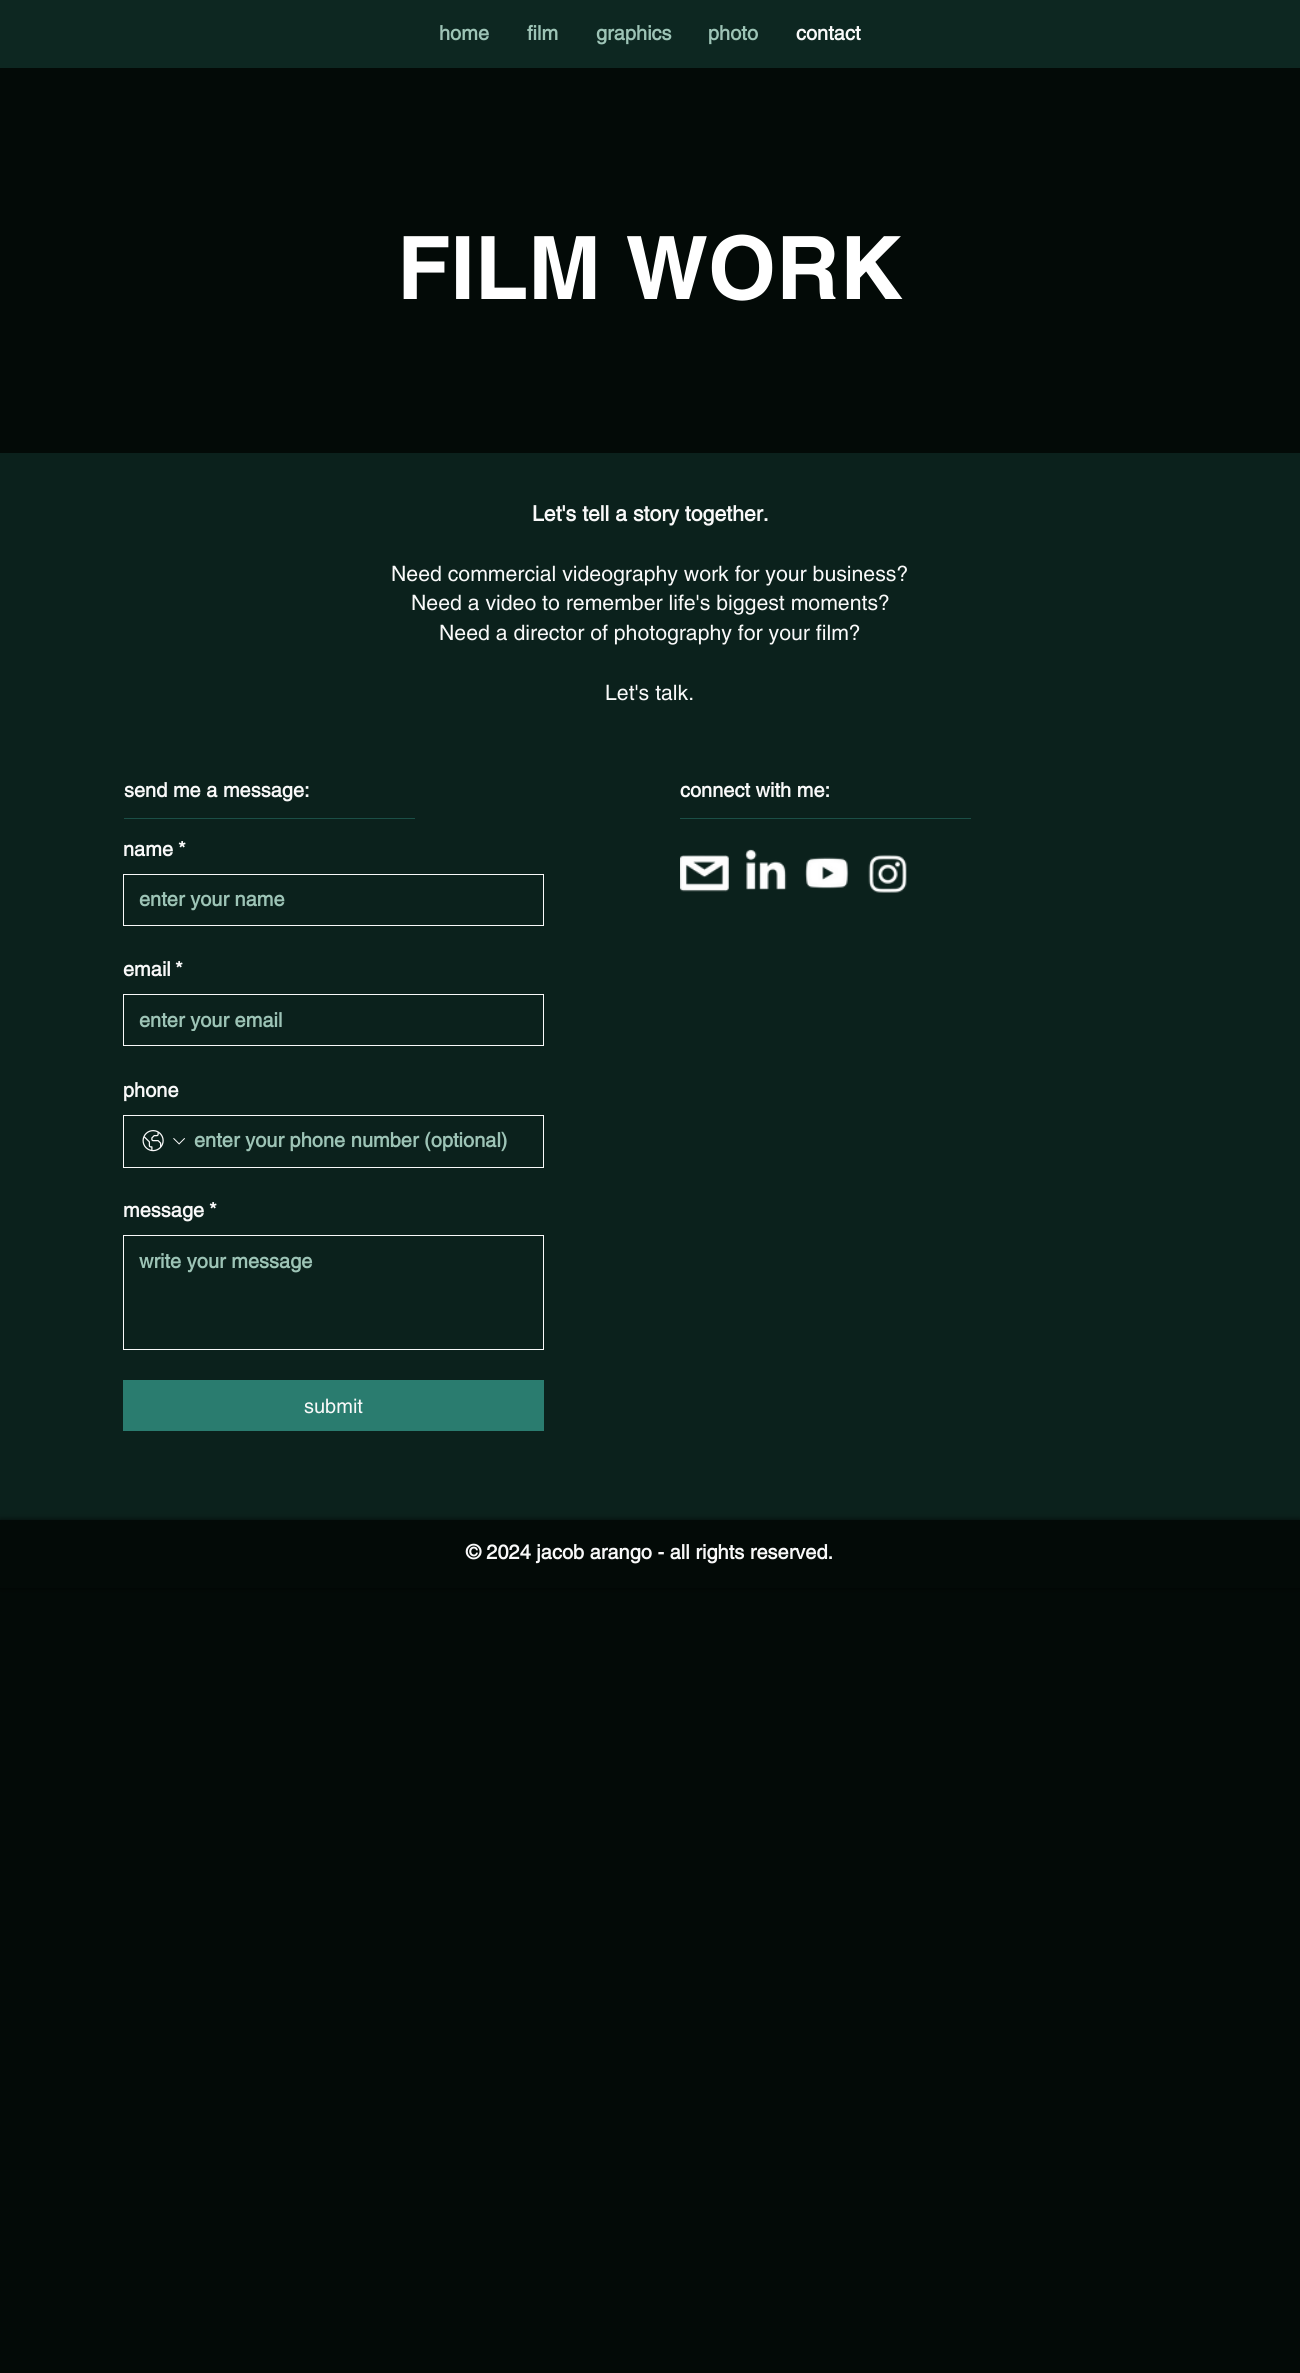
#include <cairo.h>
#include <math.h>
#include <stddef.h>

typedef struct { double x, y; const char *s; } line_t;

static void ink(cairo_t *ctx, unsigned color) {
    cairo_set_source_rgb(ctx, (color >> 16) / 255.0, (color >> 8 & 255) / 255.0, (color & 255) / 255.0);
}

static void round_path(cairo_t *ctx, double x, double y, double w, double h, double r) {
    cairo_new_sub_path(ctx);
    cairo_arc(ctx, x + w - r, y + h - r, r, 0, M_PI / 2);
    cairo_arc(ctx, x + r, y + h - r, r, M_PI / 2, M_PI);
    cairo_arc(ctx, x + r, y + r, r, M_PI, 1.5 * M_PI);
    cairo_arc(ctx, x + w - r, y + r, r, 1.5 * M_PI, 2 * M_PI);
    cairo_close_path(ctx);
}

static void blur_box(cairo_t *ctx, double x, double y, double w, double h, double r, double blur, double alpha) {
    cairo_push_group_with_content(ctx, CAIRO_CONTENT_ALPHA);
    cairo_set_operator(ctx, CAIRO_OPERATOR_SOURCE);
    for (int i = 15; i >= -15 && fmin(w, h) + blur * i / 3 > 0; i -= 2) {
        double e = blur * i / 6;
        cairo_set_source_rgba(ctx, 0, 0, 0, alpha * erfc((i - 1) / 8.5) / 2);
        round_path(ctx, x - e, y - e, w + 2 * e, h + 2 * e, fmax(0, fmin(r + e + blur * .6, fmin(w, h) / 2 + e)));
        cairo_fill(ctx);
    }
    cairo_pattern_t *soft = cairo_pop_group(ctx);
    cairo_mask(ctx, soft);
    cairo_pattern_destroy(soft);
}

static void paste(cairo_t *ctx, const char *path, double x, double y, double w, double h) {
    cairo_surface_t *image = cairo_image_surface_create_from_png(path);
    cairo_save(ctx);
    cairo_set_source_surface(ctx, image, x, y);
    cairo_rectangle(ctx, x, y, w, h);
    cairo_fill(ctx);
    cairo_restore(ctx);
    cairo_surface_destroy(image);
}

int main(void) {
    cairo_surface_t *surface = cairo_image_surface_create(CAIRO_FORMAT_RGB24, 1300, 2373);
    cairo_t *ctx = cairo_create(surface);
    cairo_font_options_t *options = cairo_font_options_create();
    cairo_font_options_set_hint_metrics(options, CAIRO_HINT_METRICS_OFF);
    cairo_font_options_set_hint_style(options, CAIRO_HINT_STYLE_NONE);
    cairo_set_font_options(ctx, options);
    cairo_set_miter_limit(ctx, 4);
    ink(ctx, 0x030A07);
    cairo_paint(ctx);
    ink(ctx, 0x0D2721);
    cairo_rectangle(ctx, 0, 0, 1300, 68);
    cairo_fill(ctx);
    cairo_select_font_face(ctx, "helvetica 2", CAIRO_FONT_SLANT_NORMAL, CAIRO_FONT_WEIGHT_BOLD);
    cairo_set_font_size(ctx, 20);
    ink(ctx, 0x9DC4B6);
    {
        static const line_t items[] = {
            {439, 40, "home"},
            {527, 40, "film"},
            {596, 40, "graphics"},
            {708, 40, "photo"},
        };
        for (size_t i = 0; i < sizeof items / sizeof *items; i++) {
            cairo_move_to(ctx, items[i].x, items[i].y);
            cairo_show_text(ctx, items[i].s);
        }
    }
    ink(ctx, 0xF9F9F9);
    cairo_move_to(ctx, 796, 40);
    cairo_show_text(ctx, "contact");
    cairo_select_font_face(ctx, "helvetica", CAIRO_FONT_SLANT_NORMAL, CAIRO_FONT_WEIGHT_BOLD);
    cairo_set_font_size(ctx, 87.5);
    ink(ctx, 0xFFFFFF);
    cairo_move_to(ctx, 397, 299);
    cairo_show_text(ctx, "FILM WORK");
    ink(ctx, 0x0B211C);
    cairo_rectangle(ctx, 0, 453, 1300, 1067);
    cairo_fill(ctx);
    cairo_select_font_face(ctx, "helvetica 2", CAIRO_FONT_SLANT_NORMAL, CAIRO_FONT_WEIGHT_BOLD);
    cairo_set_font_size(ctx, 21.25);
    ink(ctx, 0xF9F9F9);
    cairo_move_to(ctx, 532, 521);
    cairo_show_text(ctx, "Let's tell a story together.");
    cairo_select_font_face(ctx, "helvetica", CAIRO_FONT_SLANT_NORMAL, CAIRO_FONT_WEIGHT_NORMAL);
    {
        static const line_t items[] = {
            {391, 581, "Need commercial videography work for your business?"},
            {411, 610, "Need a video to remember life's biggest moments?"},
            {439, 640, "Need a director of photography for your film?"},
            {605, 700, "Let's talk."},
        };
        for (size_t i = 0; i < sizeof items / sizeof *items; i++) {
            cairo_move_to(ctx, items[i].x, items[i].y);
            cairo_show_text(ctx, items[i].s);
        }
    }
    cairo_select_font_face(ctx, "helvetica 2", CAIRO_FONT_SLANT_NORMAL, CAIRO_FONT_WEIGHT_BOLD);
    cairo_set_font_size(ctx, 20);
    cairo_move_to(ctx, 124, 797);
    cairo_show_text(ctx, "send me a message:");
    cairo_move_to(ctx, 680, 797);
    cairo_show_text(ctx, "connect with me:");
    ink(ctx, 0x1B4F46);
    cairo_rectangle(ctx, 124, 818, 291, 1);
    cairo_fill(ctx);
    cairo_rectangle(ctx, 680, 818, 291, 1);
    cairo_fill(ctx);
    ink(ctx, 0xF9F9F9);
    cairo_move_to(ctx, 123, 856);
    cairo_show_text(ctx, "name");
    cairo_move_to(ctx, 178, 856);
    cairo_show_text(ctx, "*");
    cairo_rectangle(ctx, 123.5, 874.5, 420, 51);
    cairo_set_line_width(ctx, 1);
    cairo_stroke(ctx);
    ink(ctx, 0x9DC4B6);
    cairo_move_to(ctx, 139, 906);
    cairo_show_text(ctx, "enter your name");
    ink(ctx, 0xF9F9F9);
    cairo_move_to(ctx, 123, 976);
    cairo_show_text(ctx, "email");
    cairo_move_to(ctx, 175, 976);
    cairo_show_text(ctx, "*");
    cairo_rectangle(ctx, 123.5, 994.5, 420, 51);
    cairo_stroke(ctx);
    cairo_save(ctx);
    cairo_rectangle(ctx, 139, 1008, 386, 23);
    cairo_clip(ctx);
    ink(ctx, 0x9DC4B6);
    cairo_move_to(ctx, 139, 1027);
    cairo_show_text(ctx, "enter your email");
    cairo_restore(ctx);
    cairo_move_to(ctx, 123, 1097);
    cairo_show_text(ctx, "phone");
    cairo_rectangle(ctx, 123.5, 1115.5, 420, 52);
    cairo_stroke(ctx);
    paste(ctx, "media/1.png", 142, 1130, 22, 22);
    paste(ctx, "media/2.png", 173, 1138, 12, 7);
    ink(ctx, 0x9DC4B6);
    cairo_move_to(ctx, 194, 1147);
    cairo_show_text(ctx, "enter your phone number (optional)");
    ink(ctx, 0xF9F9F9);
    cairo_move_to(ctx, 123, 1217);
    cairo_show_text(ctx, "message");
    cairo_move_to(ctx, 209, 1217);
    cairo_show_text(ctx, "*");
    cairo_rectangle(ctx, 123.5, 1235.5, 420, 114);
    cairo_stroke(ctx);
    ink(ctx, 0x9DC4B6);
    cairo_move_to(ctx, 139, 1268);
    cairo_show_text(ctx, "write your message");
    ink(ctx, 0x2A7C6F);
    cairo_rectangle(ctx, 123, 1380, 421, 51);
    cairo_fill(ctx);
    cairo_select_font_face(ctx, "helvetica", CAIRO_FONT_SLANT_NORMAL, CAIRO_FONT_WEIGHT_NORMAL);
    ink(ctx, 0xF9F9F9);
    cairo_move_to(ctx, 304, 1413);
    cairo_show_text(ctx, "submit");
    paste(ctx, "media/3.png", 680, 855, 49, 37);
    paste(ctx, "media/4.png", 745, 849, 42, 41);
    paste(ctx, "media/5.png", 805, 857, 44, 32);
    paste(ctx, "media/6.png", 868, 854, 39, 39);
    ink(ctx, 0x000000);
    blur_box(ctx, 0, 1520, 1300, 68, 0, 3, 0.7);
    ink(ctx, 0x030A07);
    cairo_rectangle(ctx, 0, 1520, 1300, 68);
    cairo_fill(ctx);
    cairo_select_font_face(ctx, "helvetica 2", CAIRO_FONT_SLANT_NORMAL, CAIRO_FONT_WEIGHT_BOLD);
    ink(ctx, 0xF9F9F9);
    cairo_move_to(ctx, 466, 1559);
    cairo_show_text(ctx, "© 2024 jacob arango - all rights reserved.");
    cairo_surface_write_to_png(surface, "image.png");
    cairo_font_options_destroy(options);
    cairo_destroy(ctx);
    cairo_surface_destroy(surface);
    return 0;
}
